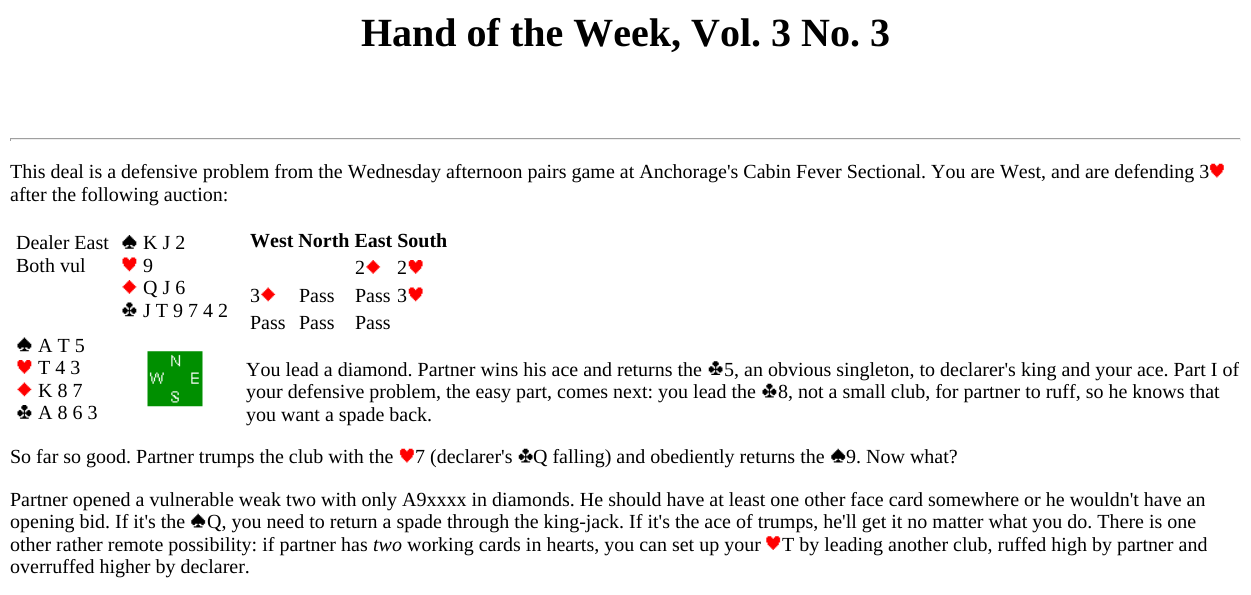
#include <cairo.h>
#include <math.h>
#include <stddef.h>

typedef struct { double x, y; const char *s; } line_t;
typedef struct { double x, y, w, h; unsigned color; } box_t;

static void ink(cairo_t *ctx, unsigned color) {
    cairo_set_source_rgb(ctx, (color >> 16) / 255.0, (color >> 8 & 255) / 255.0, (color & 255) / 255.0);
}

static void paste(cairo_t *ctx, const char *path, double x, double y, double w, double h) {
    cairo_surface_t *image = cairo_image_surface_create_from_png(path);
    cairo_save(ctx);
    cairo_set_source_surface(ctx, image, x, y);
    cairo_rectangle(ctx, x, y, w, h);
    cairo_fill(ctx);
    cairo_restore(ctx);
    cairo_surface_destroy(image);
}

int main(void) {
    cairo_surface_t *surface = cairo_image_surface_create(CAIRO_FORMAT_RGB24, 1251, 595);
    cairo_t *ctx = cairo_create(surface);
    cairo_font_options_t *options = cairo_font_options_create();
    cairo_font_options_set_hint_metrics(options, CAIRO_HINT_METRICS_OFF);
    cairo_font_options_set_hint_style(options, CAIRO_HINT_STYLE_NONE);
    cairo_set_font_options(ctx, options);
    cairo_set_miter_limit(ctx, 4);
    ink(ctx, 0xFFFFFF);
    cairo_paint(ctx);
    cairo_select_font_face(ctx, "Liberation Serif", CAIRO_FONT_SLANT_NORMAL, CAIRO_FONT_WEIGHT_BOLD);
    cairo_set_font_size(ctx, 40);
    ink(ctx, 0x000000);
    cairo_move_to(ctx, 361, 46);
    cairo_show_text(ctx, "Hand of the Week, Vol. 3 No. 3");
    {
        static const box_t items[] = {
            {10, 138, 1231, 1, 0x9F9F9F},
            {1240, 138, 1, 3, 0xEEEEEE},
            {10, 139, 1231, 1, 0xEEEEEE},
            {10, 138, 1, 3, 0x9F9F9F},
        };
        for (size_t i = 0; i < sizeof items / sizeof *items; i++) {
            ink(ctx, items[i].color);
            cairo_rectangle(ctx, items[i].x, items[i].y, items[i].w, items[i].h);
            cairo_fill(ctx);
        }
    }
    cairo_select_font_face(ctx, "Liberation Serif", CAIRO_FONT_SLANT_NORMAL, CAIRO_FONT_WEIGHT_NORMAL);
    cairo_set_font_size(ctx, 20);
    ink(ctx, 0x000000);
    cairo_move_to(ctx, 10, 178);
    cairo_show_text(ctx, "This deal is a defensive problem from the Wednesday afternoon pairs game at Anchorage's Cabin Fever Sectional. You are West, and are defending 3");
    paste(ctx, "media/1.png", 1209, 163, 15, 15);
    {
        static const line_t items[] = {
            {10, 201, "after the following auction:"},
            {16, 249, "Dealer East"},
            {16, 272, "Both vul"},
        };
        for (size_t i = 0; i < sizeof items / sizeof *items; i++) {
            cairo_move_to(ctx, items[i].x, items[i].y);
            cairo_show_text(ctx, items[i].s);
        }
    }
    paste(ctx, "media/2.png", 122, 235, 15, 14);
    cairo_move_to(ctx, 143, 249);
    cairo_show_text(ctx, "K J 2");
    paste(ctx, "media/3.png", 122, 257, 15, 15);
    cairo_move_to(ctx, 143, 272);
    cairo_show_text(ctx, "9");
    paste(ctx, "media/4.png", 122, 280, 15, 14);
    cairo_move_to(ctx, 143, 294);
    cairo_show_text(ctx, "Q J 6");
    paste(ctx, "media/5.png", 122, 302, 15, 15);
    cairo_move_to(ctx, 143, 317);
    cairo_show_text(ctx, "J T 9 7 4 2");
    paste(ctx, "media/6.png", 17, 337, 15, 15);
    cairo_move_to(ctx, 38, 352);
    cairo_show_text(ctx, "A T 5");
    paste(ctx, "media/7.png", 17, 360, 15, 14);
    cairo_move_to(ctx, 38, 374);
    cairo_show_text(ctx, "T 4 3");
    paste(ctx, "media/8.png", 17, 382, 15, 15);
    cairo_move_to(ctx, 38, 397);
    cairo_show_text(ctx, "K 8 7");
    paste(ctx, "media/9.png", 17, 405, 15, 14);
    cairo_move_to(ctx, 38, 419);
    cairo_show_text(ctx, "A 8 6 3");
    paste(ctx, "media/10.png", 147, 351, 56, 56);
    cairo_select_font_face(ctx, "Liberation Serif", CAIRO_FONT_SLANT_NORMAL, CAIRO_FONT_WEIGHT_BOLD);
    cairo_move_to(ctx, 250, 247);
    cairo_show_text(ctx, "West North East South");
    cairo_select_font_face(ctx, "Liberation Serif", CAIRO_FONT_SLANT_NORMAL, CAIRO_FONT_WEIGHT_NORMAL);
    cairo_move_to(ctx, 355, 274);
    cairo_show_text(ctx, "2");
    paste(ctx, "media/11.png", 366, 260, 15, 14);
    cairo_move_to(ctx, 397, 274);
    cairo_show_text(ctx, "2");
    paste(ctx, "media/12.png", 408, 260, 15, 14);
    cairo_move_to(ctx, 250, 302);
    cairo_show_text(ctx, "3");
    paste(ctx, "media/13.png", 261, 287, 15, 15);
    {
        static const line_t items[] = {
            {299, 302, "Pass"},
            {355, 302, "Pass"},
            {397, 302, "3"},
        };
        for (size_t i = 0; i < sizeof items / sizeof *items; i++) {
            cairo_move_to(ctx, items[i].x, items[i].y);
            cairo_show_text(ctx, items[i].s);
        }
    }
    paste(ctx, "media/14.png", 408, 287, 15, 15);
    {
        static const line_t items[] = {
            {250, 329, "Pass"},
            {299, 329, "Pass"},
            {355, 329, "Pass"},
            {246, 376, "You lead a diamond. Partner wins his ace and returns the"},
        };
        for (size_t i = 0; i < sizeof items / sizeof *items; i++) {
            cairo_move_to(ctx, items[i].x, items[i].y);
            cairo_show_text(ctx, items[i].s);
        }
    }
    paste(ctx, "media/15.png", 708, 361, 15, 14);
    cairo_move_to(ctx, 724, 376);
    cairo_show_text(ctx, "5, an obvious singleton, to declarer's king and your ace. Part I of");
    cairo_move_to(ctx, 246, 398);
    cairo_show_text(ctx, "your defensive problem, the easy part, comes next: you lead the");
    paste(ctx, "media/16.png", 762, 383, 15, 15);
    {
        static const line_t items[] = {
            {778, 398, "8, not a small club, for partner to ruff, so he knows that"},
            {246, 421, "you want a spade back."},
            {10, 463, "So far so good. Partner trumps the club with the"},
        };
        for (size_t i = 0; i < sizeof items / sizeof *items; i++) {
            cairo_move_to(ctx, items[i].x, items[i].y);
            cairo_show_text(ctx, items[i].s);
        }
    }
    paste(ctx, "media/17.png", 399, 448, 15, 15);
    cairo_move_to(ctx, 415, 463);
    cairo_show_text(ctx, "7 (declarer's");
    paste(ctx, "media/18.png", 518, 448, 15, 15);
    cairo_move_to(ctx, 533, 463);
    cairo_show_text(ctx, "Q falling) and obediently returns the");
    paste(ctx, "media/19.png", 831, 448, 15, 15);
    {
        static const line_t items[] = {
            {846, 463, "9. Now what?"},
            {10, 506, "Partner opened a vulnerable weak two with only A9xxxx in diamonds. He should have at least one other face card somewhere or he wouldn't have an"},
            {10, 528, "opening bid. If it's the"},
        };
        for (size_t i = 0; i < sizeof items / sizeof *items; i++) {
            cairo_move_to(ctx, items[i].x, items[i].y);
            cairo_show_text(ctx, items[i].s);
        }
    }
    paste(ctx, "media/20.png", 191, 513, 15, 15);
    cairo_move_to(ctx, 207, 528);
    cairo_show_text(ctx, "Q, you need to return a spade through the king-jack. If it's the ace of trumps, he'll get it no matter what you do. There is one");
    cairo_move_to(ctx, 10, 551);
    cairo_show_text(ctx, "other rather remote possibility: if partner has");
    cairo_select_font_face(ctx, "Liberation Serif", CAIRO_FONT_SLANT_ITALIC, CAIRO_FONT_WEIGHT_NORMAL);
    cairo_move_to(ctx, 373, 551);
    cairo_show_text(ctx, "two");
    cairo_select_font_face(ctx, "Liberation Serif", CAIRO_FONT_SLANT_NORMAL, CAIRO_FONT_WEIGHT_NORMAL);
    cairo_move_to(ctx, 407, 551);
    cairo_show_text(ctx, "working cards in hearts, you can set up your");
    paste(ctx, "media/21.png", 766, 536, 15, 14);
    cairo_move_to(ctx, 782, 551);
    cairo_show_text(ctx, "T by leading another club, ruffed high by partner and");
    cairo_move_to(ctx, 10, 573);
    cairo_show_text(ctx, "overruffed higher by declarer.");
    cairo_surface_write_to_png(surface, "image.png");
    cairo_font_options_destroy(options);
    cairo_destroy(ctx);
    cairo_surface_destroy(surface);
    return 0;
}
